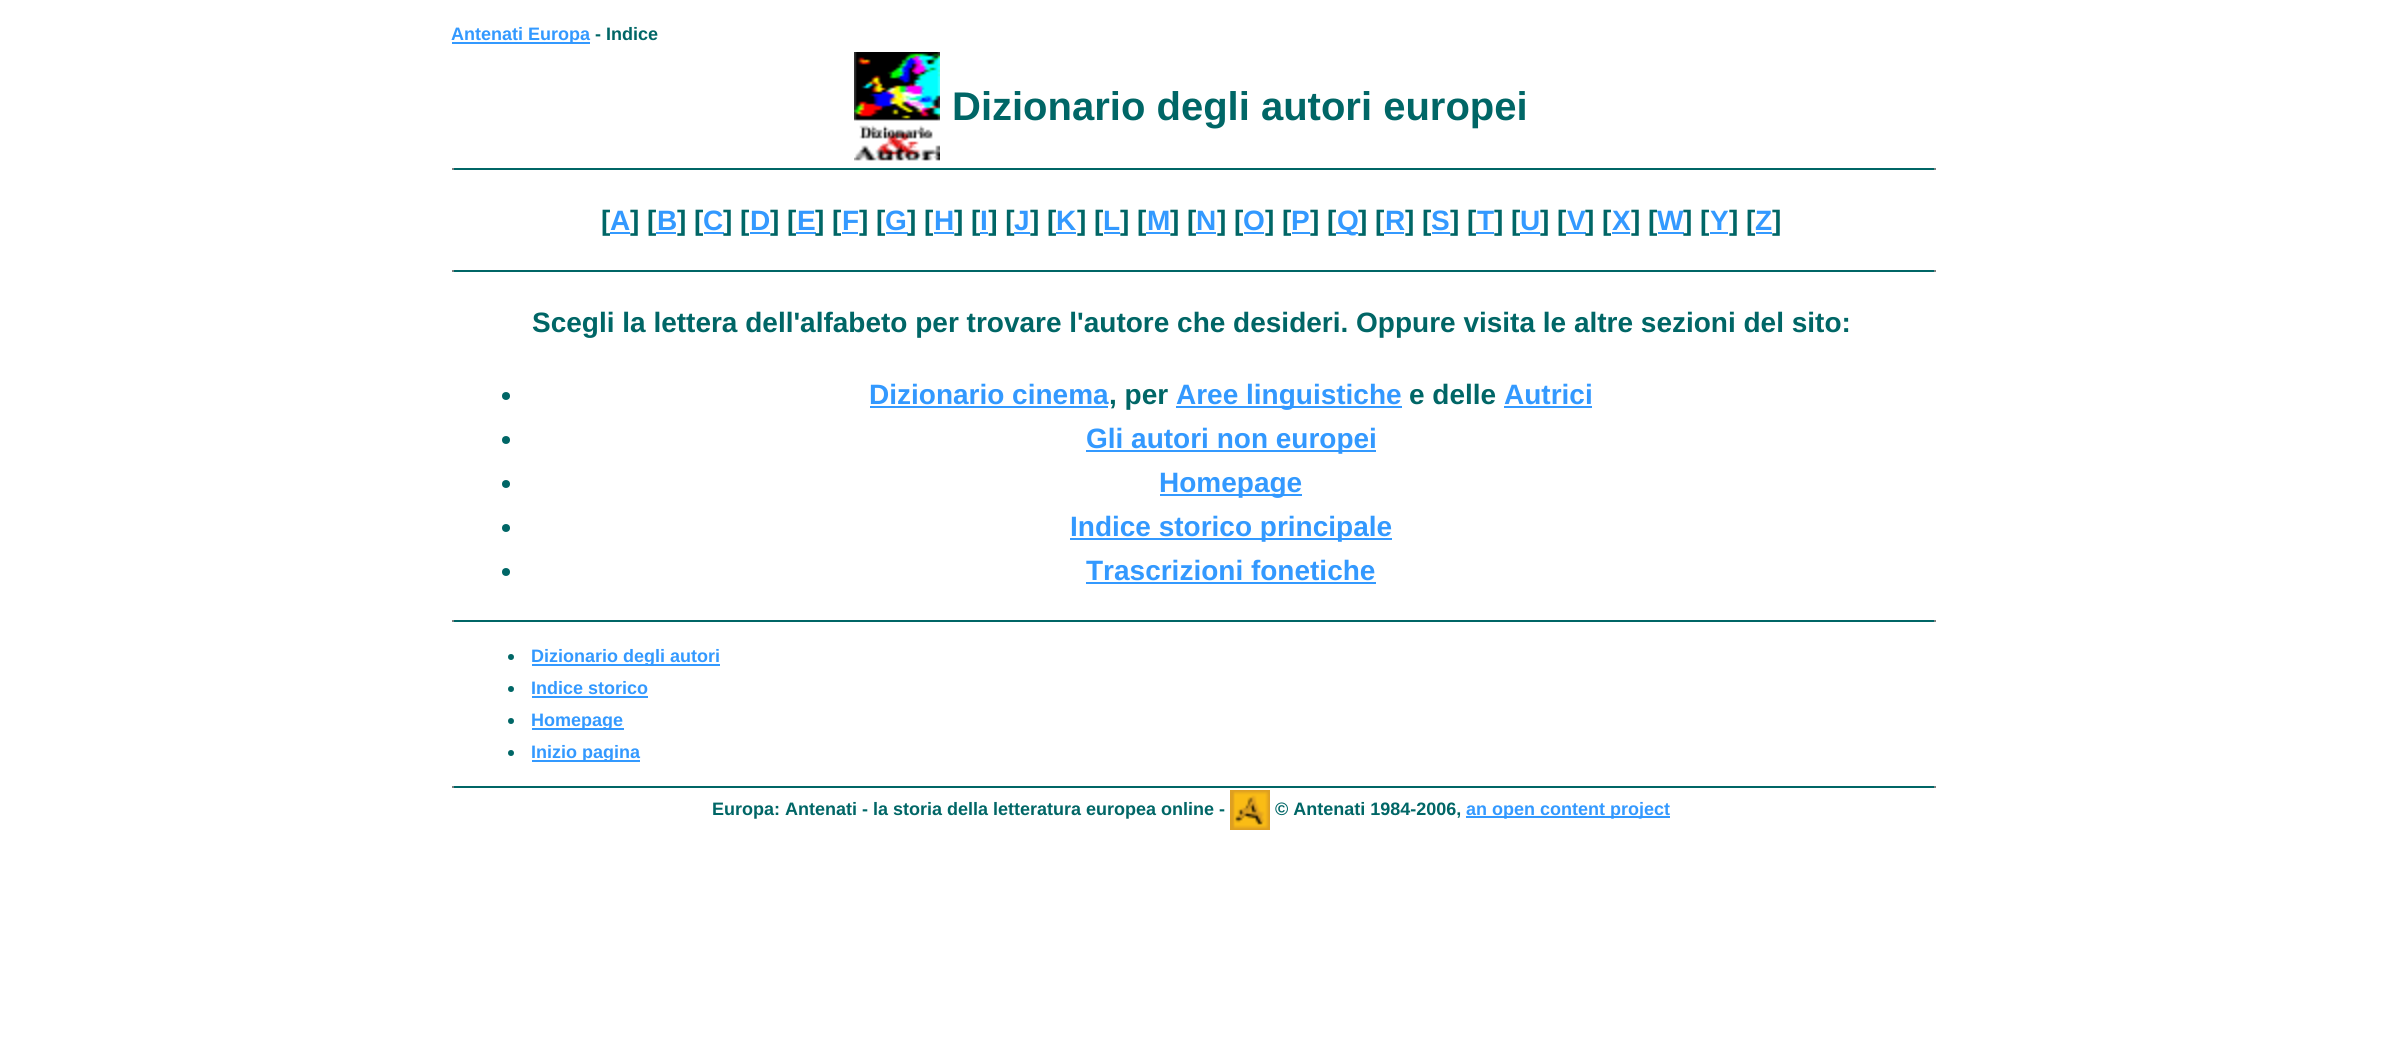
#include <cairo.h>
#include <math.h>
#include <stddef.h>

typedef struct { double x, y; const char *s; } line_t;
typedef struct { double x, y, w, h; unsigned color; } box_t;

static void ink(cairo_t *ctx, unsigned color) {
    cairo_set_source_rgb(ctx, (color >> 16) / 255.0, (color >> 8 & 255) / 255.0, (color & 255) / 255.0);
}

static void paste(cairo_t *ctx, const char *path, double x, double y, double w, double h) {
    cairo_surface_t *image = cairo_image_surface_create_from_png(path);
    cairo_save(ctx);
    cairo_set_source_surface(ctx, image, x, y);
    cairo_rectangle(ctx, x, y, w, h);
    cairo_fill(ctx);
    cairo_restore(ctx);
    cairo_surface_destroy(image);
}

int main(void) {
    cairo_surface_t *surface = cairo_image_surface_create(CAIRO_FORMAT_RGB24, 2382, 1045);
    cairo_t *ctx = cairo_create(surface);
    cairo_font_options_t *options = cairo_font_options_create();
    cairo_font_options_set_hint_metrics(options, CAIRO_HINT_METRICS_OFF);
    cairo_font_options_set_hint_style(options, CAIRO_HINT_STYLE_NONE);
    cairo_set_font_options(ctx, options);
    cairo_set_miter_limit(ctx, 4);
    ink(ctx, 0xFFFFFF);
    cairo_paint(ctx);
    ink(ctx, 0x3399FF);
    cairo_rectangle(ctx, 452, 42, 138, 2);
    cairo_fill(ctx);
    cairo_select_font_face(ctx, "Liberation Sans", CAIRO_FONT_SLANT_NORMAL, CAIRO_FONT_WEIGHT_BOLD);
    cairo_set_font_size(ctx, 18);
    cairo_move_to(ctx, 451, 40);
    cairo_show_text(ctx, "Antenati Europa");
    ink(ctx, 0x006666);
    cairo_move_to(ctx, 595, 40);
    cairo_show_text(ctx, "- Indice");
    paste(ctx, "media/1.png", 854, 52, 86, 109);
    cairo_set_font_size(ctx, 40);
    cairo_move_to(ctx, 952, 120);
    cairo_show_text(ctx, "Dizionario degli autori europei");
    {
        static const box_t items[] = {
            {452, 168, 1484, 2, 0x006666},
            {1934, 168, 2, 2, 0x808080},
            {452, 168, 2, 2, 0x808080},
        };
        for (size_t i = 0; i < sizeof items / sizeof *items; i++) {
            ink(ctx, items[i].color);
            cairo_rectangle(ctx, items[i].x, items[i].y, items[i].w, items[i].h);
            cairo_fill(ctx);
        }
    }
    cairo_set_font_size(ctx, 28);
    ink(ctx, 0x006666);
    cairo_move_to(ctx, 601, 230);
    cairo_show_text(ctx, "[");
    ink(ctx, 0x3399FF);
    cairo_move_to(ctx, 610, 230);
    cairo_show_text(ctx, "A");
    cairo_rectangle(ctx, 610, 232, 20, 2);
    cairo_fill(ctx);
    ink(ctx, 0x006666);
    cairo_move_to(ctx, 630, 230);
    cairo_show_text(ctx, "] [");
    ink(ctx, 0x3399FF);
    cairo_move_to(ctx, 657, 230);
    cairo_show_text(ctx, "B");
    cairo_rectangle(ctx, 656, 232, 20, 2);
    cairo_fill(ctx);
    ink(ctx, 0x006666);
    cairo_move_to(ctx, 677, 230);
    cairo_show_text(ctx, "] [");
    ink(ctx, 0x3399FF);
    cairo_move_to(ctx, 703, 230);
    cairo_show_text(ctx, "C");
    cairo_rectangle(ctx, 704, 232, 20, 2);
    cairo_fill(ctx);
    ink(ctx, 0x006666);
    cairo_move_to(ctx, 723, 230);
    cairo_show_text(ctx, "] [");
    ink(ctx, 0x3399FF);
    cairo_move_to(ctx, 750, 230);
    cairo_show_text(ctx, "D");
    cairo_rectangle(ctx, 750, 232, 20, 2);
    cairo_fill(ctx);
    ink(ctx, 0x006666);
    cairo_move_to(ctx, 770, 230);
    cairo_show_text(ctx, "] [");
    ink(ctx, 0x3399FF);
    cairo_move_to(ctx, 797, 230);
    cairo_show_text(ctx, "E");
    cairo_rectangle(ctx, 796, 232, 20, 2);
    cairo_fill(ctx);
    ink(ctx, 0x006666);
    cairo_move_to(ctx, 815, 230);
    cairo_show_text(ctx, "] [");
    ink(ctx, 0x3399FF);
    cairo_move_to(ctx, 842, 230);
    cairo_show_text(ctx, "F");
    cairo_rectangle(ctx, 842, 232, 16, 2);
    cairo_fill(ctx);
    ink(ctx, 0x006666);
    cairo_move_to(ctx, 859, 230);
    cairo_show_text(ctx, "] [");
    ink(ctx, 0x3399FF);
    cairo_move_to(ctx, 885, 230);
    cairo_show_text(ctx, "G");
    cairo_rectangle(ctx, 886, 232, 22, 2);
    cairo_fill(ctx);
    ink(ctx, 0x006666);
    cairo_move_to(ctx, 907, 230);
    cairo_show_text(ctx, "] [");
    ink(ctx, 0x3399FF);
    cairo_move_to(ctx, 934, 230);
    cairo_show_text(ctx, "H");
    cairo_rectangle(ctx, 934, 232, 20, 2);
    cairo_fill(ctx);
    ink(ctx, 0x006666);
    {
        static const line_t items[] = {
            {954, 230, "] [ ] ["},
            {1030, 230, "] ["},
            {1077, 230, "] ["},
            {1120, 230, "] ["},
            {1170, 230, "] ["},
            {1217, 230, "] ["},
            {1265, 230, "] ["},
            {1310, 230, "] ["},
            {1358, 230, "] ["},
            {1405, 230, "] ["},
            {1450, 230, "] ["},
            {1494, 230, "] ["},
            {1540, 230, "] ["},
        };
        for (size_t i = 0; i < sizeof items / sizeof *items; i++) {
            cairo_move_to(ctx, items[i].x, items[i].y);
            cairo_show_text(ctx, items[i].s);
        }
    }
    ink(ctx, 0x3399FF);
    cairo_move_to(ctx, 1567, 230);
    cairo_show_text(ctx, "V");
    cairo_rectangle(ctx, 1566, 232, 20, 2);
    cairo_fill(ctx);
    ink(ctx, 0x006666);
    cairo_move_to(ctx, 1585, 230);
    cairo_show_text(ctx, "] [");
    ink(ctx, 0x3399FF);
    cairo_move_to(ctx, 1612, 230);
    cairo_show_text(ctx, "X");
    ink(ctx, 0x006666);
    cairo_move_to(ctx, 1631, 230);
    cairo_show_text(ctx, "] [");
    ink(ctx, 0x3399FF);
    cairo_move_to(ctx, 1657, 230);
    cairo_show_text(ctx, "W");
    cairo_rectangle(ctx, 1658, 232, 26, 2);
    cairo_fill(ctx);
    ink(ctx, 0x006666);
    cairo_move_to(ctx, 1683, 230);
    cairo_show_text(ctx, "] [");
    ink(ctx, 0x3399FF);
    cairo_move_to(ctx, 1710, 230);
    cairo_show_text(ctx, "Y");
    ink(ctx, 0x006666);
    cairo_move_to(ctx, 1729, 230);
    cairo_show_text(ctx, "] [");
    cairo_move_to(ctx, 1772, 230);
    cairo_show_text(ctx, "]");
    ink(ctx, 0x3399FF);
    cairo_move_to(ctx, 980, 230);
    cairo_show_text(ctx, "I");
    cairo_rectangle(ctx, 980, 232, 8, 2);
    cairo_fill(ctx);
    cairo_move_to(ctx, 1014, 230);
    cairo_show_text(ctx, "J");
    cairo_rectangle(ctx, 1014, 232, 16, 2);
    cairo_fill(ctx);
    cairo_move_to(ctx, 1056, 230);
    cairo_show_text(ctx, "K");
    cairo_rectangle(ctx, 1056, 232, 20, 2);
    cairo_fill(ctx);
    cairo_move_to(ctx, 1103, 230);
    cairo_show_text(ctx, "L");
    cairo_rectangle(ctx, 1104, 232, 16, 2);
    cairo_fill(ctx);
    cairo_move_to(ctx, 1147, 230);
    cairo_show_text(ctx, "M");
    cairo_rectangle(ctx, 1146, 232, 24, 2);
    cairo_fill(ctx);
    cairo_move_to(ctx, 1196, 230);
    cairo_show_text(ctx, "N");
    cairo_rectangle(ctx, 1196, 232, 20, 2);
    cairo_fill(ctx);
    cairo_move_to(ctx, 1243, 230);
    cairo_show_text(ctx, "O");
    cairo_rectangle(ctx, 1244, 232, 20, 2);
    cairo_fill(ctx);
    cairo_move_to(ctx, 1291, 230);
    cairo_show_text(ctx, "P");
    cairo_rectangle(ctx, 1292, 232, 18, 2);
    cairo_fill(ctx);
    cairo_rectangle(ctx, 1336, 232, 22, 2);
    cairo_fill(ctx);
    cairo_move_to(ctx, 1337, 230);
    cairo_show_text(ctx, "Q");
    cairo_move_to(ctx, 1385, 230);
    cairo_show_text(ctx, "R");
    cairo_rectangle(ctx, 1384, 232, 20, 2);
    cairo_fill(ctx);
    cairo_move_to(ctx, 1431, 230);
    cairo_show_text(ctx, "S");
    cairo_rectangle(ctx, 1432, 232, 18, 2);
    cairo_fill(ctx);
    cairo_move_to(ctx, 1477, 230);
    cairo_show_text(ctx, "T");
    cairo_rectangle(ctx, 1476, 232, 18, 2);
    cairo_fill(ctx);
    cairo_move_to(ctx, 1520, 230);
    cairo_show_text(ctx, "U");
    {
        static const box_t items[] = {
            {1520, 232, 20, 2, 0x3399FF},
            {1612, 232, 18, 2, 0x3399FF},
            {1710, 232, 18, 2, 0x3399FF},
        };
        for (size_t i = 0; i < sizeof items / sizeof *items; i++) {
            ink(ctx, items[i].color);
            cairo_rectangle(ctx, items[i].x, items[i].y, items[i].w, items[i].h);
            cairo_fill(ctx);
        }
    }
    cairo_move_to(ctx, 1755, 230);
    cairo_show_text(ctx, "Z");
    {
        static const box_t items[] = {
            {1756, 232, 16, 2, 0x3399FF},
            {452, 270, 1484, 2, 0x006666},
            {1934, 270, 2, 2, 0x808080},
            {452, 270, 2, 2, 0x808080},
        };
        for (size_t i = 0; i < sizeof items / sizeof *items; i++) {
            ink(ctx, items[i].color);
            cairo_rectangle(ctx, items[i].x, items[i].y, items[i].w, items[i].h);
            cairo_fill(ctx);
        }
    }
    ink(ctx, 0x006666);
    cairo_move_to(ctx, 532, 332);
    cairo_show_text(ctx, "Scegli la lettera dell'alfabeto per trovare l'autore che desideri. Oppure visita le altre sezioni del sito:");
    cairo_new_path(ctx);
    cairo_arc(ctx, 506, 396, 4, 0, 2 * M_PI);
    cairo_fill(ctx);
    ink(ctx, 0x3399FF);
    cairo_move_to(ctx, 869, 404);
    cairo_show_text(ctx, "Dizionario cinema");
    cairo_rectangle(ctx, 870, 406, 238, 2);
    cairo_fill(ctx);
    ink(ctx, 0x006666);
    cairo_move_to(ctx, 1109, 404);
    cairo_show_text(ctx, ", per");
    ink(ctx, 0x3399FF);
    cairo_rectangle(ctx, 1176, 406, 226, 2);
    cairo_fill(ctx);
    cairo_move_to(ctx, 1176, 404);
    cairo_show_text(ctx, "Aree linguistiche");
    ink(ctx, 0x006666);
    cairo_move_to(ctx, 1409, 404);
    cairo_show_text(ctx, "e delle");
    ink(ctx, 0x3399FF);
    cairo_move_to(ctx, 1504, 404);
    cairo_show_text(ctx, "Autrici");
    cairo_rectangle(ctx, 1504, 406, 88, 2);
    cairo_fill(ctx);
    ink(ctx, 0x006666);
    cairo_arc(ctx, 506, 440, 4, 0, 2 * M_PI);
    cairo_fill(ctx);
    ink(ctx, 0x3399FF);
    cairo_rectangle(ctx, 1086, 450, 290, 2);
    cairo_fill(ctx);
    cairo_move_to(ctx, 1086, 448);
    cairo_show_text(ctx, "Gli autori non europei");
    ink(ctx, 0x006666);
    cairo_new_path(ctx);
    cairo_arc(ctx, 506, 484, 4, 0, 2 * M_PI);
    cairo_fill(ctx);
    ink(ctx, 0x3399FF);
    cairo_rectangle(ctx, 1160, 494, 142, 2);
    cairo_fill(ctx);
    cairo_move_to(ctx, 1159, 492);
    cairo_show_text(ctx, "Homepage");
    ink(ctx, 0x006666);
    cairo_new_path(ctx);
    cairo_arc(ctx, 506, 528, 4, 0, 2 * M_PI);
    cairo_fill(ctx);
    ink(ctx, 0x3399FF);
    cairo_rectangle(ctx, 1070, 538, 322, 2);
    cairo_fill(ctx);
    cairo_move_to(ctx, 1070, 536);
    cairo_show_text(ctx, "Indice storico principale");
    ink(ctx, 0x006666);
    cairo_new_path(ctx);
    cairo_arc(ctx, 506, 572, 4, 0, 2 * M_PI);
    cairo_fill(ctx);
    ink(ctx, 0x3399FF);
    cairo_move_to(ctx, 1086, 580);
    cairo_show_text(ctx, "Trascrizioni fonetiche");
    {
        static const box_t items[] = {
            {1086, 582, 290, 2, 0x3399FF},
            {452, 620, 1484, 2, 0x006666},
            {1934, 620, 2, 2, 0x808080},
            {452, 620, 2, 2, 0x808080},
        };
        for (size_t i = 0; i < sizeof items / sizeof *items; i++) {
            ink(ctx, items[i].color);
            cairo_rectangle(ctx, items[i].x, items[i].y, items[i].w, items[i].h);
            cairo_fill(ctx);
        }
    }
    ink(ctx, 0x006666);
    cairo_new_path(ctx);
    cairo_arc(ctx, 511, 657, 3, 0, 2 * M_PI);
    cairo_fill(ctx);
    ink(ctx, 0x3399FF);
    cairo_rectangle(ctx, 532, 664, 188, 2);
    cairo_fill(ctx);
    cairo_set_font_size(ctx, 18);
    cairo_move_to(ctx, 531, 662);
    cairo_show_text(ctx, "Dizionario degli autori");
    ink(ctx, 0x006666);
    cairo_new_path(ctx);
    cairo_arc(ctx, 511, 689, 3, 0, 2 * M_PI);
    cairo_fill(ctx);
    ink(ctx, 0x3399FF);
    cairo_move_to(ctx, 531, 694);
    cairo_show_text(ctx, "Indice storico");
    cairo_rectangle(ctx, 532, 696, 116, 2);
    cairo_fill(ctx);
    ink(ctx, 0x006666);
    cairo_arc(ctx, 511, 721, 3, 0, 2 * M_PI);
    cairo_fill(ctx);
    ink(ctx, 0x3399FF);
    cairo_rectangle(ctx, 532, 728, 92, 2);
    cairo_fill(ctx);
    cairo_move_to(ctx, 531, 726);
    cairo_show_text(ctx, "Homepage");
    ink(ctx, 0x006666);
    cairo_new_path(ctx);
    cairo_arc(ctx, 511, 753, 3, 0, 2 * M_PI);
    cairo_fill(ctx);
    ink(ctx, 0x3399FF);
    cairo_rectangle(ctx, 532, 760, 108, 2);
    cairo_fill(ctx);
    cairo_move_to(ctx, 531, 758);
    cairo_show_text(ctx, "Inizio pagina");
    {
        static const box_t items[] = {
            {452, 786, 1484, 2, 0x006666},
            {1934, 786, 2, 2, 0x808080},
            {452, 786, 2, 2, 0x808080},
        };
        for (size_t i = 0; i < sizeof items / sizeof *items; i++) {
            ink(ctx, items[i].color);
            cairo_rectangle(ctx, items[i].x, items[i].y, items[i].w, items[i].h);
            cairo_fill(ctx);
        }
    }
    ink(ctx, 0x006666);
    cairo_move_to(ctx, 712, 815);
    cairo_show_text(ctx, "Europa: Antenati - la storia della letteratura europea online -");
    paste(ctx, "media/2.png", 1230, 790, 40, 40);
    cairo_move_to(ctx, 1275, 815);
    cairo_show_text(ctx, "© Antenati 1984-2006,");
    ink(ctx, 0x3399FF);
    cairo_rectangle(ctx, 1466, 816, 204, 2);
    cairo_fill(ctx);
    cairo_move_to(ctx, 1466, 815);
    cairo_show_text(ctx, "an open content project");
    cairo_surface_write_to_png(surface, "image.png");
    cairo_font_options_destroy(options);
    cairo_destroy(ctx);
    cairo_surface_destroy(surface);
    return 0;
}
